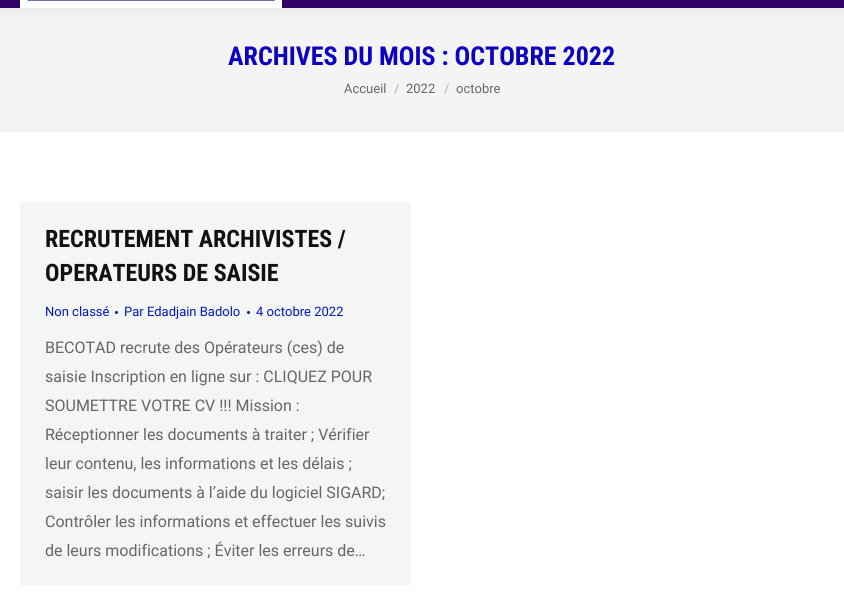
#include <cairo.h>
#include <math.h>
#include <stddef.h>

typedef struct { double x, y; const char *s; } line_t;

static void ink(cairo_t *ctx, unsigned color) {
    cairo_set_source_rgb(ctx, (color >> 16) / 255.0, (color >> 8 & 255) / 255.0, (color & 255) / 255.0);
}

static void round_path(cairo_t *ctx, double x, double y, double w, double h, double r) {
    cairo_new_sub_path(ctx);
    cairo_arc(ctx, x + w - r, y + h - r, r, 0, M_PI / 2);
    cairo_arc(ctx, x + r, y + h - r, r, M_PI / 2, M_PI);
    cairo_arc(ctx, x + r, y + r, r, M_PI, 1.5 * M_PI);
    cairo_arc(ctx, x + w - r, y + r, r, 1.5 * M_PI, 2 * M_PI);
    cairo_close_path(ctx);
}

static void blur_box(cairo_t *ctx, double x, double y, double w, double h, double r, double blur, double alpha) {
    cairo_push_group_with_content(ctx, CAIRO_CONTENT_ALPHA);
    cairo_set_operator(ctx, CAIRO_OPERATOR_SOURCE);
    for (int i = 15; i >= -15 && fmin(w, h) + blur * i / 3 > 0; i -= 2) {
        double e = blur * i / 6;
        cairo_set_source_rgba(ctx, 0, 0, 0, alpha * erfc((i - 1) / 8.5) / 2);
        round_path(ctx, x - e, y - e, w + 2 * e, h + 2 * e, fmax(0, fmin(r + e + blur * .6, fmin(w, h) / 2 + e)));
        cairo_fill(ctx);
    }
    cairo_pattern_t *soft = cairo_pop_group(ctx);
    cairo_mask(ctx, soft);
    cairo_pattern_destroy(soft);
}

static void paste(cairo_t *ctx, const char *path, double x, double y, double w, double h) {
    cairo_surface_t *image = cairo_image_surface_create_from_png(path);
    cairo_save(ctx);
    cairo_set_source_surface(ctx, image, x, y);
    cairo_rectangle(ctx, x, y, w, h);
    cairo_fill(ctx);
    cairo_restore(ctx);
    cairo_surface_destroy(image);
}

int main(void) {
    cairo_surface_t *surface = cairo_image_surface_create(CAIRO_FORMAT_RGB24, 844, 611);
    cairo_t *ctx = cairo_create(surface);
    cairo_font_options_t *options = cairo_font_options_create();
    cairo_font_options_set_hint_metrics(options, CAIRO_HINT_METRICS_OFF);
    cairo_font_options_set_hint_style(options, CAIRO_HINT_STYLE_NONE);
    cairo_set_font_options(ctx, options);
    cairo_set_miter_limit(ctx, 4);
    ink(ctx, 0xFFFFFF);
    cairo_paint(ctx);
    ink(ctx, 0xF4F4F5);
    cairo_rectangle(ctx, 0, 8, 844, 124);
    cairo_fill(ctx);
    ink(ctx, 0x000000);
    blur_box(ctx, -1, -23, 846, 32, 0, 7.5, 0.07);
    ink(ctx, 0x330066);
    cairo_rectangle(ctx, 0, 0, 844, 8);
    cairo_fill(ctx);
    paste(ctx, "media/1.png", 20, 0, 262, 8);
    cairo_select_font_face(ctx, "Roboto Condensed", CAIRO_FONT_SLANT_NORMAL, CAIRO_FONT_WEIGHT_BOLD);
    cairo_set_font_size(ctx, 26);
    ink(ctx, 0x0C00C1);
    cairo_move_to(ctx, 228, 65);
    cairo_show_text(ctx, "ARCHIVES DU MOIS : OCTOBRE 2022");
    cairo_select_font_face(ctx, "Roboto", CAIRO_FONT_SLANT_NORMAL, CAIRO_FONT_WEIGHT_NORMAL);
    cairo_set_font_size(ctx, 13);
    ink(ctx, 0x666666);
    cairo_move_to(ctx, 344, 93);
    cairo_show_text(ctx, "Accueil");
    ink(ctx, 0xADADAE);
    cairo_move_to(ctx, 394, 93);
    cairo_show_text(ctx, "/");
    ink(ctx, 0x666666);
    cairo_move_to(ctx, 406, 93);
    cairo_show_text(ctx, "2022");
    ink(ctx, 0xADADAE);
    cairo_move_to(ctx, 444, 93);
    cairo_show_text(ctx, "/");
    ink(ctx, 0x666666);
    cairo_move_to(ctx, 456, 93);
    cairo_show_text(ctx, "octobre");
    ink(ctx, 0xF4F5F5);
    cairo_rectangle(ctx, 20, 202, 391, 383);
    cairo_fill(ctx);
    cairo_select_font_face(ctx, "Roboto Condensed", CAIRO_FONT_SLANT_NORMAL, CAIRO_FONT_WEIGHT_BOLD);
    cairo_set_font_size(ctx, 24);
    ink(ctx, 0x111111);
    cairo_move_to(ctx, 45, 247);
    cairo_show_text(ctx, "RECRUTEMENT ARCHIVISTES /");
    cairo_move_to(ctx, 45, 281);
    cairo_show_text(ctx, "OPERATEURS DE SAISIE");
    cairo_select_font_face(ctx, "Roboto", CAIRO_FONT_SLANT_NORMAL, CAIRO_FONT_WEIGHT_NORMAL);
    cairo_set_font_size(ctx, 13);
    ink(ctx, 0x0019BC);
    cairo_move_to(ctx, 45, 316);
    cairo_show_text(ctx, "Non classé");
    cairo_new_path(ctx);
    cairo_arc(ctx, 116.5, 312.5, 1.5, 0, 2 * M_PI);
    cairo_fill(ctx);
    cairo_move_to(ctx, 124, 316);
    cairo_show_text(ctx, "Par Edadjain Badolo");
    cairo_new_path(ctx);
    cairo_arc(ctx, 248.5, 312.5, 1.5, 0, 2 * M_PI);
    cairo_fill(ctx);
    cairo_move_to(ctx, 256, 316);
    cairo_show_text(ctx, "4 octobre 2022");
    cairo_set_font_size(ctx, 16);
    ink(ctx, 0x666666);
    {
        static const line_t items[] = {
            {45, 353, "BECOTAD recrute des Opérateurs (ces) de"},
            {45, 382, "saisie Inscription en ligne sur : CLIQUEZ POUR"},
            {45, 411, "SOUMETTRE VOTRE CV !!! Mission :"},
            {45, 440, "Réceptionner les documents à traiter ; Vérifier"},
            {45, 469, "leur contenu, les informations et les délais ;"},
            {45, 498, "saisir les documents à l’aide du logiciel SIGARD;"},
            {45, 527, "Contrôler les informations et effectuer les suivis"},
            {45, 556, "de leurs modifications ; Éviter les erreurs de…"},
        };
        for (size_t i = 0; i < sizeof items / sizeof *items; i++) {
            cairo_move_to(ctx, items[i].x, items[i].y);
            cairo_show_text(ctx, items[i].s);
        }
    }
    cairo_surface_write_to_png(surface, "image.png");
    cairo_font_options_destroy(options);
    cairo_destroy(ctx);
    cairo_surface_destroy(surface);
    return 0;
}
